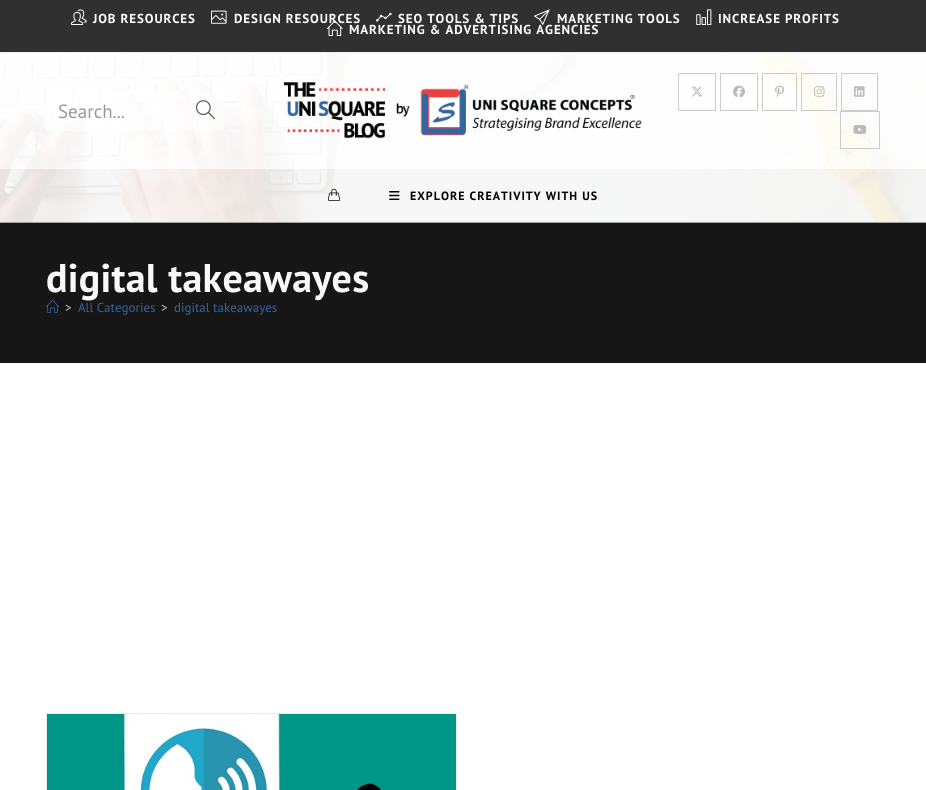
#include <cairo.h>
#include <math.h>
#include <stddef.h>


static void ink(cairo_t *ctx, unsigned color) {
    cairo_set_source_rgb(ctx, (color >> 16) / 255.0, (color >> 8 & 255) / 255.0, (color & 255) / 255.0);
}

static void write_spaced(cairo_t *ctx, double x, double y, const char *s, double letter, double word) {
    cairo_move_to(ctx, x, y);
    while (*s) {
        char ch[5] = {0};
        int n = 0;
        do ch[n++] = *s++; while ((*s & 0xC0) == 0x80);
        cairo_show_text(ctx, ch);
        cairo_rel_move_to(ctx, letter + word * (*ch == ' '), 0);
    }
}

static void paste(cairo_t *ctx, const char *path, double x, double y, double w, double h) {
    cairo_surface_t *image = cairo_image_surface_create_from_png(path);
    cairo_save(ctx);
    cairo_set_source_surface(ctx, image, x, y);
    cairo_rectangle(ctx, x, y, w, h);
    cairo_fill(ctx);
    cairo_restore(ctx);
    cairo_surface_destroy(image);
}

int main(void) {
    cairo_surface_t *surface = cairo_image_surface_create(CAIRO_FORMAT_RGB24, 926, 790);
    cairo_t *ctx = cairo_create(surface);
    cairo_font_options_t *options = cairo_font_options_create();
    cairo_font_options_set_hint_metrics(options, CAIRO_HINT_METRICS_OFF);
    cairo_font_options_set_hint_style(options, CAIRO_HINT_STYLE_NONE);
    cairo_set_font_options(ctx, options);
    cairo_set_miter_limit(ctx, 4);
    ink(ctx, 0xFFFFFF);
    cairo_paint(ctx);
    ink(ctx, 0x303030);
    cairo_rectangle(ctx, 0, 0, 926, 52);
    cairo_fill(ctx);
    ink(ctx, 0xF1F1F1);
    cairo_rectangle(ctx, 0, 52, 926, 1);
    cairo_fill(ctx);
    paste(ctx, "media/1.png", 71, 9, 16, 16);
    cairo_select_font_face(ctx, "PT Sans", CAIRO_FONT_SLANT_NORMAL, CAIRO_FONT_WEIGHT_BOLD);
    cairo_set_font_size(ctx, 13);
    ink(ctx, 0xFFFFFF);
    write_spaced(ctx, 93, 23, "JOB RESOURCES", 0.9, 0);
    paste(ctx, "media/2.png", 211, 10, 16, 14);
    write_spaced(ctx, 234, 23, "DESIGN RESOURCES", 0.9, 0);
    paste(ctx, "media/3.png", 376, 12, 16, 10);
    write_spaced(ctx, 398, 23, "SEO TOOLS & TIPS", 0.9, 0);
    paste(ctx, "media/4.png", 534, 9, 16, 16);
    write_spaced(ctx, 557, 23, "MARKETING TOOLS", 0.9, 0);
    paste(ctx, "media/5.png", 696, 9, 16, 16);
    write_spaced(ctx, 718, 23, "INCREASE PROFITS", 0.9, 0);
    paste(ctx, "media/6.png", 327, 20, 16, 16);
    write_spaced(ctx, 349, 34, "MARKETING & ADVERTISING AGENCIES", 0.9, 0);
    paste(ctx, "media/7.png", 0, 53, 926, 169);
    ink(ctx, 0xA0A0A0);
    cairo_rectangle(ctx, 0, 222, 926, 1);
    cairo_fill(ctx);
    cairo_set_source_rgba(ctx, 1, 1, 1, 0.95);
    cairo_rectangle(ctx, 0, 53, 926, 116);
    cairo_fill(ctx);
    cairo_set_source_rgba(ctx, 1, 1, 1, 0.5);
    cairo_rectangle(ctx, 46, 91, 178, 40);
    cairo_fill(ctx);
    cairo_select_font_face(ctx, "PT Sans", CAIRO_FONT_SLANT_NORMAL, CAIRO_FONT_WEIGHT_NORMAL);
    cairo_set_font_size(ctx, 19);
    ink(ctx, 0x999898);
    cairo_move_to(ctx, 58, 118);
    cairo_show_text(ctx, "Search...");
    paste(ctx, "media/8.png", 196, 100, 19, 20);
    paste(ctx, "media/9.png", 283, 82, 359, 57);
    cairo_rectangle(ctx, 678.5, 73.5, 37, 37);
    ink(ctx, 0xCCCCCC);
    cairo_set_line_width(ctx, 1);
    cairo_stroke(ctx);
    paste(ctx, "media/10.png", 691, 86, 12, 11);
    cairo_rectangle(ctx, 720.5, 73.5, 37, 37);
    cairo_stroke(ctx);
    paste(ctx, "media/11.png", 733, 85, 12, 13);
    cairo_rectangle(ctx, 762.5, 73.5, 34, 37);
    cairo_stroke(ctx);
    paste(ctx, "media/12.png", 775, 85, 9, 12);
    cairo_rectangle(ctx, 801.5, 73.5, 35, 37);
    cairo_stroke(ctx);
    paste(ctx, "media/13.png", 814, 86, 11, 11);
    cairo_rectangle(ctx, 841.5, 73.5, 36, 37);
    cairo_stroke(ctx);
    paste(ctx, "media/14.png", 854, 86, 11, 11);
    cairo_rectangle(ctx, 840.5, 111.5, 39, 37);
    cairo_stroke(ctx);
    paste(ctx, "media/15.png", 853, 125, 14, 9);
    cairo_set_source_rgba(ctx, 0.976, 0.976, 0.976, 0.9);
    cairo_rectangle(ctx, 0, 169, 926, 53);
    cairo_fill(ctx);
    paste(ctx, "media/16.png", 328, 188, 12, 13);
    paste(ctx, "media/17.png", 389, 191, 11, 9);
    cairo_select_font_face(ctx, "PT Sans", CAIRO_FONT_SLANT_NORMAL, CAIRO_FONT_WEIGHT_BOLD);
    cairo_set_font_size(ctx, 12);
    ink(ctx, 0x020202);
    write_spaced(ctx, 410, 200, "EXPLORE CREATIVITY WITH US", 1, 0);
    ink(ctx, 0x161616);
    cairo_rectangle(ctx, 0, 223, 926, 140);
    cairo_fill(ctx);
    cairo_set_font_size(ctx, 40);
    ink(ctx, 0xF9F9F9);
    write_spaced(ctx, 46, 292, "digital takeawayes", 0.25, 0);
    paste(ctx, "media/18.png", 46, 299, 13, 14);
    cairo_select_font_face(ctx, "PT Sans", CAIRO_FONT_SLANT_NORMAL, CAIRO_FONT_WEIGHT_NORMAL);
    cairo_set_font_size(ctx, 13);
    ink(ctx, 0xC6C6C6);
    cairo_move_to(ctx, 65, 312);
    cairo_show_text(ctx, ">");
    ink(ctx, 0x36649E);
    cairo_move_to(ctx, 78, 312);
    cairo_show_text(ctx, "All Categories");
    ink(ctx, 0xC6C6C6);
    cairo_move_to(ctx, 161, 312);
    cairo_show_text(ctx, ">");
    ink(ctx, 0x36649E);
    cairo_move_to(ctx, 174, 312);
    cairo_show_text(ctx, "digital takeawayes");
    cairo_rectangle(ctx, 46.5, 713.5, 410, 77);
    ink(ctx, 0xE9E9E9);
    cairo_stroke(ctx);
    paste(ctx, "media/19.png", 47, 714, 409, 76);
    cairo_surface_write_to_png(surface, "image.png");
    cairo_font_options_destroy(options);
    cairo_destroy(ctx);
    cairo_surface_destroy(surface);
    return 0;
}
